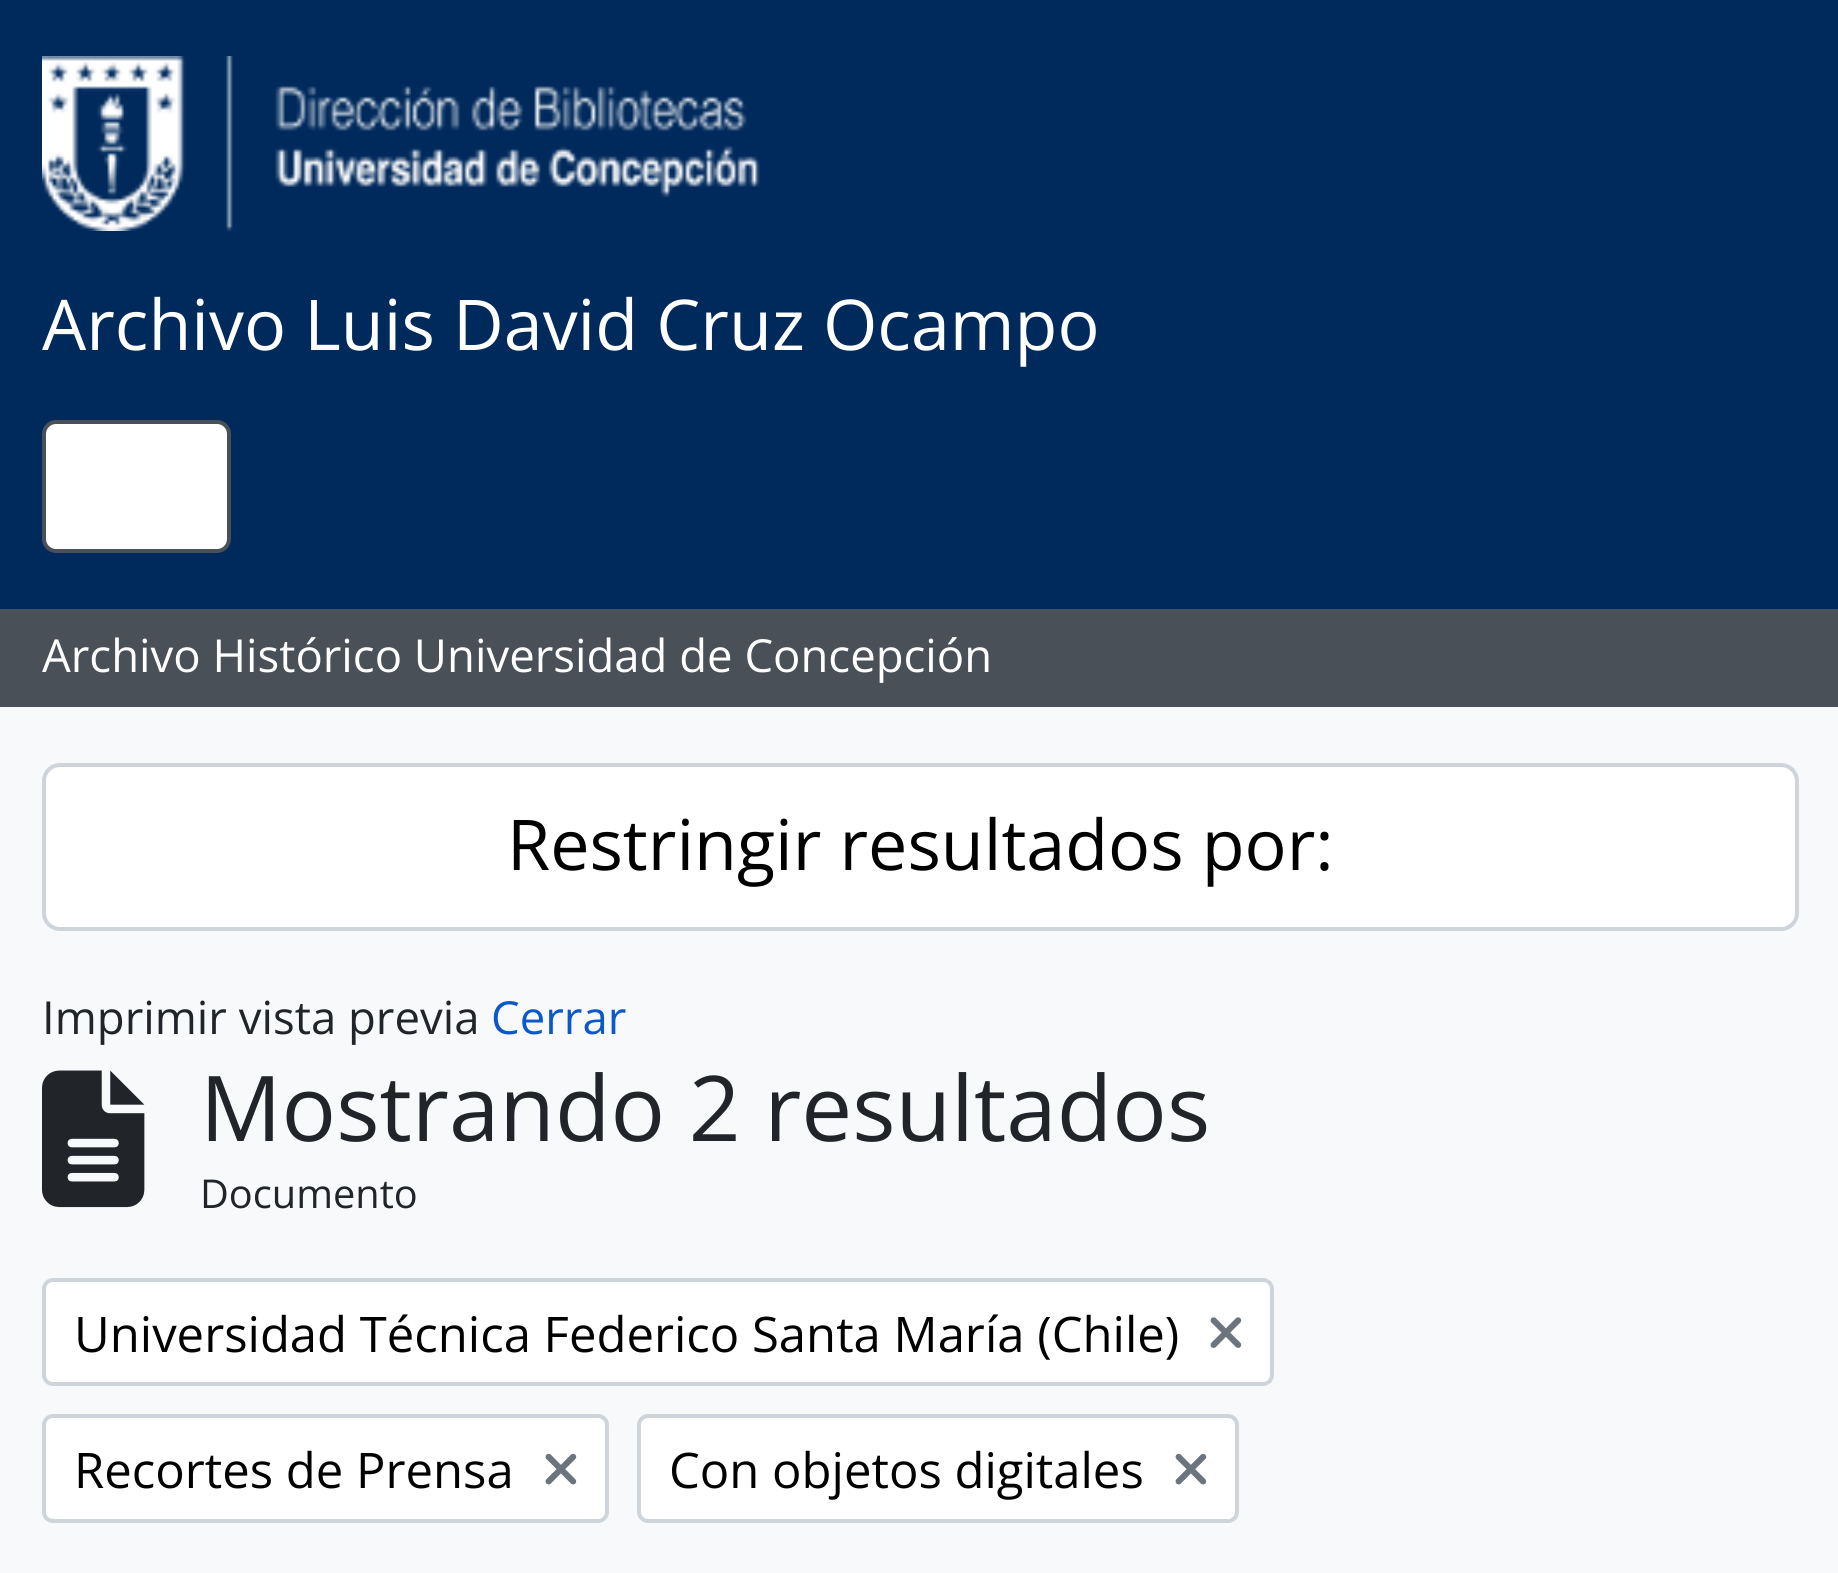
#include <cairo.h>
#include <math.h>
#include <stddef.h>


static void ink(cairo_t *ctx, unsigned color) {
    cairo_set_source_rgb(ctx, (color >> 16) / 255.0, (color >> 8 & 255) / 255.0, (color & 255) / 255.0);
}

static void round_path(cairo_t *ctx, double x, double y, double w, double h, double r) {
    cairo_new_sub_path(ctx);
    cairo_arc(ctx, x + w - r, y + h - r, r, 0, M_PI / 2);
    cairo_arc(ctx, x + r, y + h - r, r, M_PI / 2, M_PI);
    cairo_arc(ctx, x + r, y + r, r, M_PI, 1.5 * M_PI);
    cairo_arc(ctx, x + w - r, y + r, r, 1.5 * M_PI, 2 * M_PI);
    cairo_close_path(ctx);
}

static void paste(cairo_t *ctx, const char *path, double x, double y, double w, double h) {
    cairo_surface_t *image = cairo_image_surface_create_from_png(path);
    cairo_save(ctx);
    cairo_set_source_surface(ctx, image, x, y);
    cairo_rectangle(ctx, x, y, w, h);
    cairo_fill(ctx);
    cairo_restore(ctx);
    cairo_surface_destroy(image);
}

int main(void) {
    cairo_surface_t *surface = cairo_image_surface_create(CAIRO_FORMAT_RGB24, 1838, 1573);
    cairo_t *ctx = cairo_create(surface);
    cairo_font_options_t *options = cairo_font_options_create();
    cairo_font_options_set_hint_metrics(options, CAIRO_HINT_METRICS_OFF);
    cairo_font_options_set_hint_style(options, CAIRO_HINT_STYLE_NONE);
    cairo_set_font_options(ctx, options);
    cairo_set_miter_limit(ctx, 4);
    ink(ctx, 0xF8F9FA);
    cairo_paint(ctx);
    ink(ctx, 0x002A5C);
    cairo_rectangle(ctx, 0, 0, 1838, 609);
    cairo_fill(ctx);
    paste(ctx, "media/1.png", 42, 56, 718, 175);
    cairo_select_font_face(ctx, "Open Sans", CAIRO_FONT_SLANT_NORMAL, CAIRO_FONT_WEIGHT_NORMAL);
    cairo_set_font_size(ctx, 70);
    ink(ctx, 0xFFFFFF);
    cairo_move_to(ctx, 42, 350);
    cairo_show_text(ctx, "Archivo Luis David Cruz Ocampo");
    round_path(ctx, 44, 422, 185, 129, 12);
    cairo_fill_preserve(ctx);
    ink(ctx, 0x495057);
    cairo_set_line_width(ctx, 4);
    cairo_stroke(ctx);
    cairo_rectangle(ctx, 0, 609, 1838, 98);
    cairo_fill(ctx);
    cairo_set_font_size(ctx, 45.5);
    ink(ctx, 0xFFFFFF);
    cairo_move_to(ctx, 42, 672);
    cairo_show_text(ctx, "Archivo Histórico Universidad de Concepción");
    round_path(ctx, 44, 765, 1753, 164, 16);
    cairo_fill_preserve(ctx);
    ink(ctx, 0xCED4DA);
    cairo_stroke(ctx);
    cairo_set_font_size(ctx, 70);
    ink(ctx, 0x000000);
    cairo_move_to(ctx, 507, 870);
    cairo_show_text(ctx, "Restringir resultados por:");
    cairo_set_font_size(ctx, 45.5);
    ink(ctx, 0x212529);
    cairo_move_to(ctx, 42, 1034);
    cairo_show_text(ctx, "Imprimir vista previa");
    ink(ctx, 0x0A58CA);
    cairo_move_to(ctx, 491, 1034);
    cairo_show_text(ctx, "Cerrar");
    paste(ctx, "media/2.png", 42, 1070, 103, 138);
    cairo_set_font_size(ctx, 90.75);
    ink(ctx, 0x212529);
    cairo_move_to(ctx, 200, 1141);
    cairo_show_text(ctx, "Mostrando 2 resultados");
    cairo_set_font_size(ctx, 39.75);
    cairo_move_to(ctx, 200, 1208);
    cairo_show_text(ctx, "Documento");
    ink(ctx, 0xFFFFFF);
    round_path(ctx, 44, 1280, 1228, 104, 9);
    cairo_fill_preserve(ctx);
    ink(ctx, 0xCED4DA);
    cairo_stroke(ctx);
    cairo_set_font_size(ctx, 49);
    ink(ctx, 0x000000);
    cairo_move_to(ctx, 74, 1352);
    cairo_show_text(ctx, "Universidad Técnica Federico Santa María (Chile)");
    paste(ctx, "media/3.png", 1210, 1317, 32, 31);
    ink(ctx, 0xFFFFFF);
    round_path(ctx, 44, 1416, 563, 105, 9);
    cairo_fill_preserve(ctx);
    ink(ctx, 0xCED4DA);
    cairo_stroke(ctx);
    ink(ctx, 0x000000);
    cairo_move_to(ctx, 74, 1488);
    cairo_show_text(ctx, "Recortes de Prensa");
    paste(ctx, "media/4.png", 545, 1453, 32, 32);
    ink(ctx, 0xFFFFFF);
    round_path(ctx, 639, 1416, 598, 105, 9);
    cairo_fill_preserve(ctx);
    ink(ctx, 0xCED4DA);
    cairo_stroke(ctx);
    ink(ctx, 0x000000);
    cairo_move_to(ctx, 669, 1488);
    cairo_show_text(ctx, "Con objetos digitales");
    paste(ctx, "media/4.png", 1175, 1453, 32, 32);
    cairo_surface_write_to_png(surface, "image.png");
    cairo_font_options_destroy(options);
    cairo_destroy(ctx);
    cairo_surface_destroy(surface);
    return 0;
}
